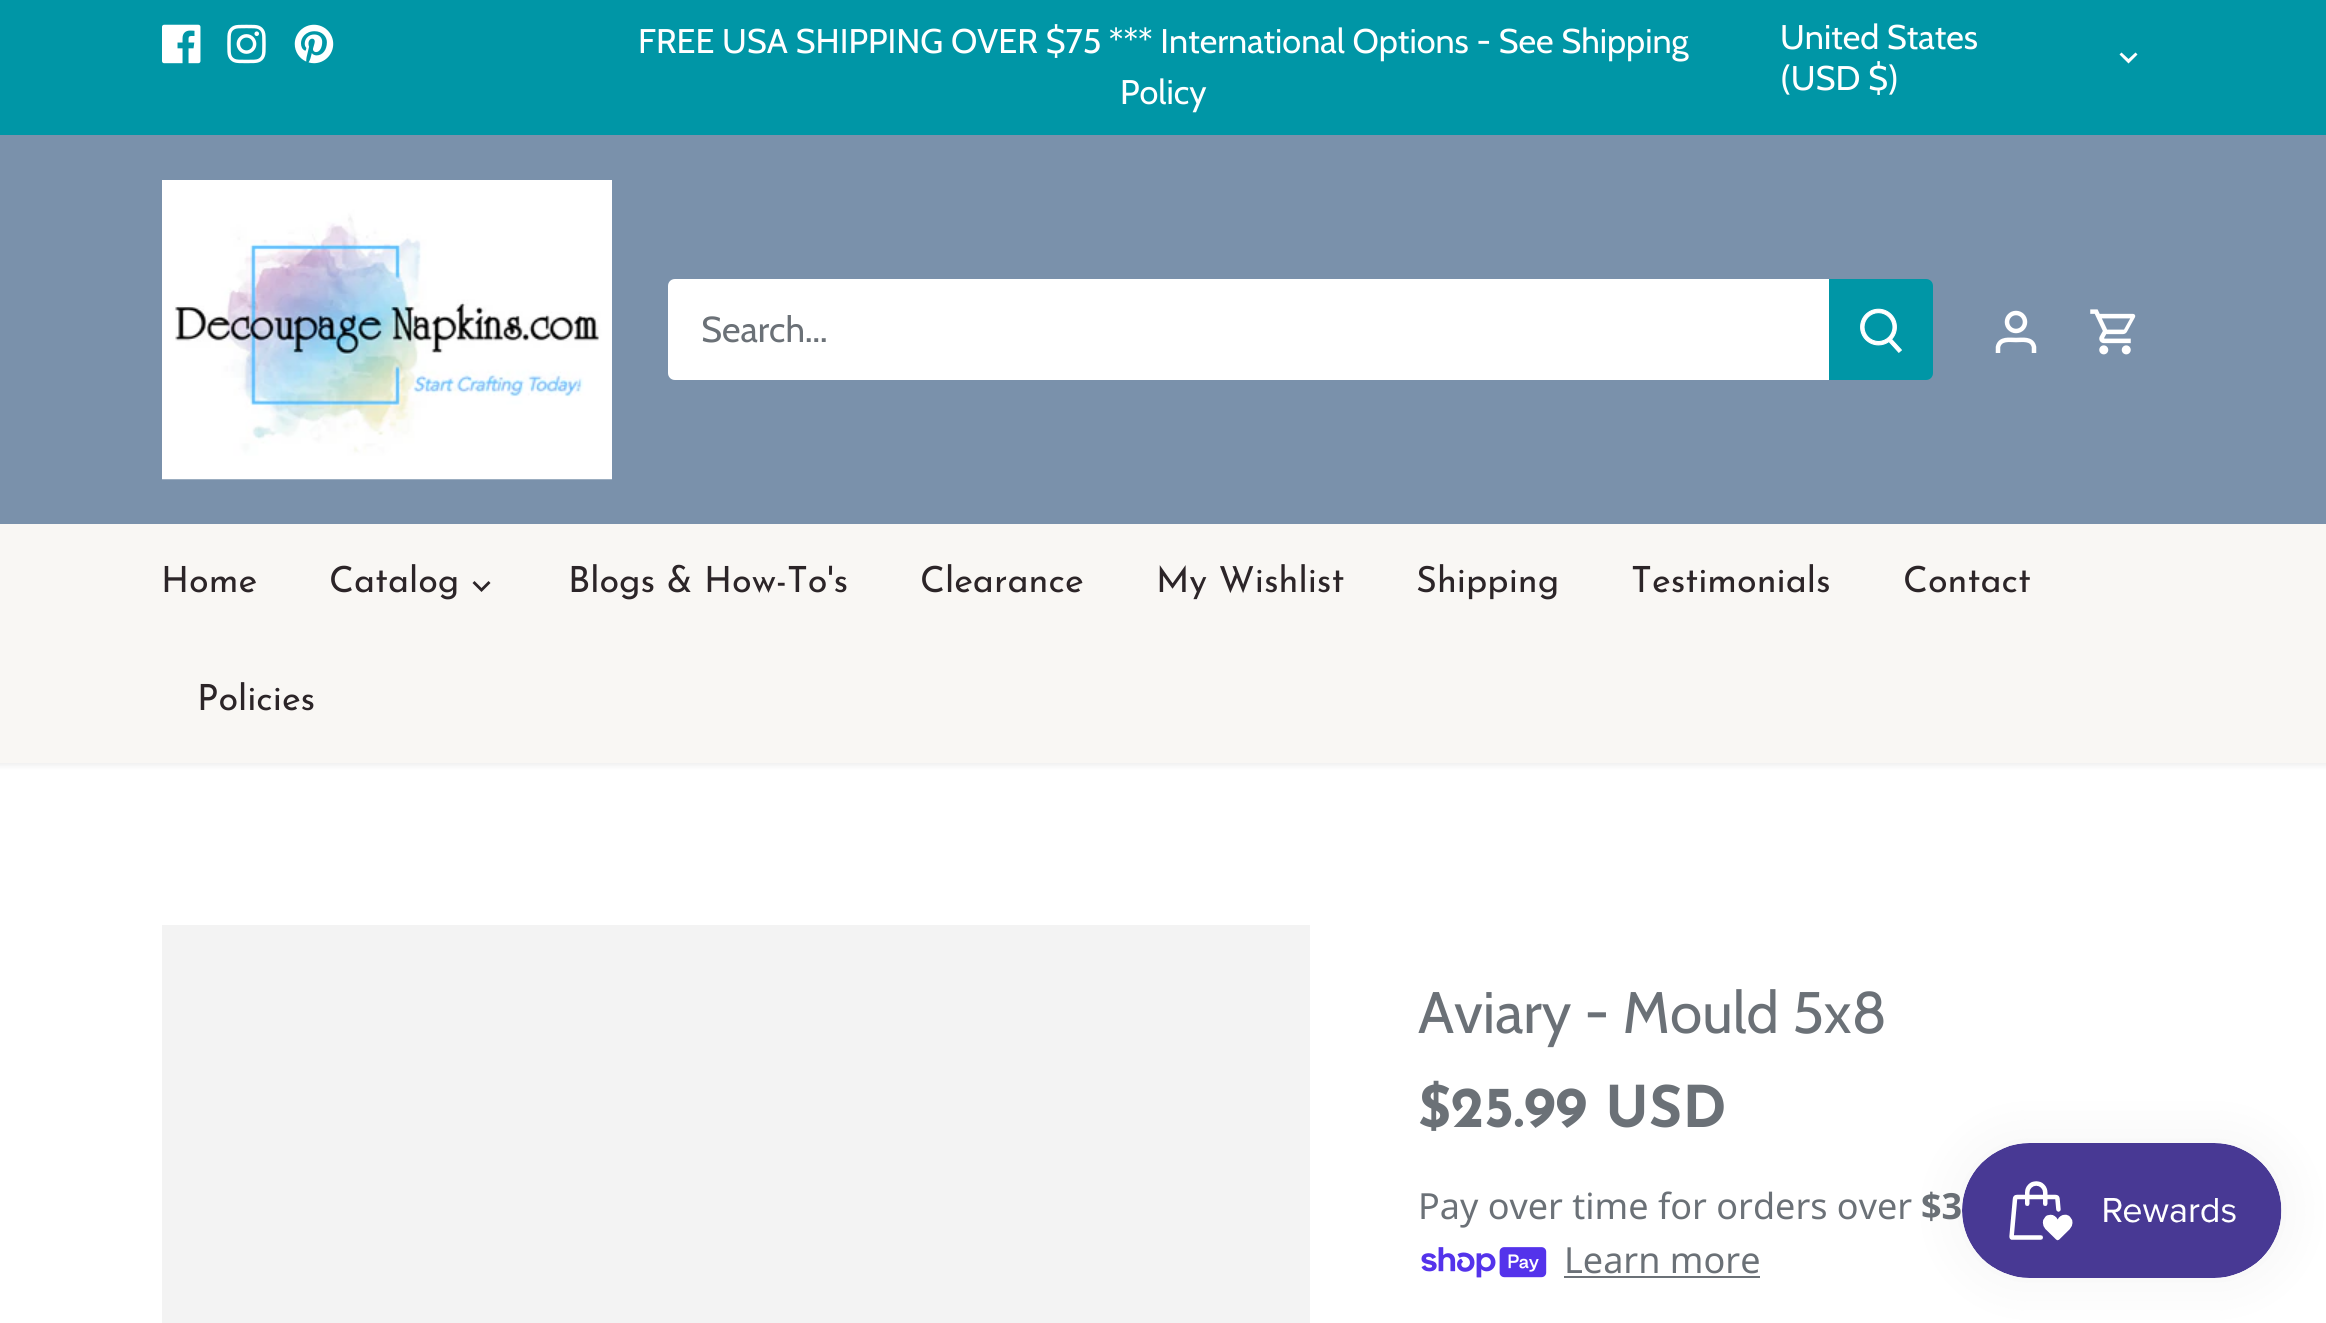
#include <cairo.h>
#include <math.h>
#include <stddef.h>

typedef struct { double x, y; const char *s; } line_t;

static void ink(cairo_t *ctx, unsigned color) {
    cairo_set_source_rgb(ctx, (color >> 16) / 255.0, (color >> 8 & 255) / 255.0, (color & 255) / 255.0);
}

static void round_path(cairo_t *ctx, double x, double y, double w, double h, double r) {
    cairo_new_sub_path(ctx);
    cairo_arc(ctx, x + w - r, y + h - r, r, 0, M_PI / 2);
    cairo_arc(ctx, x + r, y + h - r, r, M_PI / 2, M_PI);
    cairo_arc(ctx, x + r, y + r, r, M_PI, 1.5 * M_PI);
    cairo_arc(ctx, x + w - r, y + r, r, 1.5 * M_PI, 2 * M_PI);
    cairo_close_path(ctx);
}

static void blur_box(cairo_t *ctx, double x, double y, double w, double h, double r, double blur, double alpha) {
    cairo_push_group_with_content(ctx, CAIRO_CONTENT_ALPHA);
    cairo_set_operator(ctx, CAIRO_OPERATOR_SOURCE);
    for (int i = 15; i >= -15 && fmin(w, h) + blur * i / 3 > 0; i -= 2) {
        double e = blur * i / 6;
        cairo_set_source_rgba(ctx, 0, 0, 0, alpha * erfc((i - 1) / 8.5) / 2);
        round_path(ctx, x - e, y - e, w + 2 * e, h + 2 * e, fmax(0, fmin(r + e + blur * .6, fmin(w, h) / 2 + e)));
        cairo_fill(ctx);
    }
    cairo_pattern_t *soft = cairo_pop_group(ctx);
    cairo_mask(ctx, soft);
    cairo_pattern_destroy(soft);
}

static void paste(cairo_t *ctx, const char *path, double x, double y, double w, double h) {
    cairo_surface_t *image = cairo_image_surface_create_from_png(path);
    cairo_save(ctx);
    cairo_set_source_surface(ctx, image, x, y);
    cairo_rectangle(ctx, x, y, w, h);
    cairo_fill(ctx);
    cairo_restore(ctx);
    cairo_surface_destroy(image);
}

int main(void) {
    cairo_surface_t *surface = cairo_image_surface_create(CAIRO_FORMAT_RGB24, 2326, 1323);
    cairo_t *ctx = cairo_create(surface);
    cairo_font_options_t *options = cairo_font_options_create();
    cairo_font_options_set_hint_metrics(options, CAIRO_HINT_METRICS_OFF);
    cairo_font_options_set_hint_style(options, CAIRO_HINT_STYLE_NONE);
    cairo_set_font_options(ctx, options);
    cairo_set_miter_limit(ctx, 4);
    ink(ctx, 0xFFFFFF);
    cairo_paint(ctx);
    ink(ctx, 0x000000);
    blur_box(ctx, -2, 133, 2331, 632, 0, 3.5, 0.08);
    ink(ctx, 0x0096A6);
    cairo_rectangle(ctx, 0, 0, 2326, 135);
    cairo_fill(ctx);
    paste(ctx, "media/1.png", 162, 24, 39, 40);
    paste(ctx, "media/2.png", 227, 24, 39, 40);
    paste(ctx, "media/3.png", 294, 24, 40, 40);
    cairo_select_font_face(ctx, "Cabin", CAIRO_FONT_SLANT_NORMAL, CAIRO_FONT_WEIGHT_NORMAL);
    cairo_set_font_size(ctx, 34.2);
    ink(ctx, 0xFFFFFF);
    {
        static const line_t items[] = {
            {638, 53, "FREE USA SHIPPING OVER $75 *** International Options - See Shipping"},
            {1120, 104, "Policy"},
            {1780, 49, "United States"},
        };
        for (size_t i = 0; i < sizeof items / sizeof *items; i++) {
            cairo_move_to(ctx, items[i].x, items[i].y);
            cairo_show_text(ctx, items[i].s);
        }
    }
    cairo_new_path(ctx);
    cairo_move_to(ctx, 2121.5, 52.5);
    cairo_line_to(ctx, 2128.5, 59);
    cairo_line_to(ctx, 2135.5, 52.5);
    cairo_line_to(ctx, 2137.5, 54.5);
    cairo_line_to(ctx, 2128.5, 63.5);
    cairo_line_to(ctx, 2119.5, 54.5);
    cairo_close_path(ctx);
    cairo_fill(ctx);
    cairo_move_to(ctx, 1780, 90);
    cairo_show_text(ctx, "(USD $)");
    ink(ctx, 0xF9F7F4);
    cairo_rectangle(ctx, 0, 524, 2326, 239);
    cairo_fill(ctx);
    ink(ctx, 0x7A91AB);
    cairo_rectangle(ctx, 0, 135, 2326, 389);
    cairo_fill(ctx);
    paste(ctx, "media/4.png", 162, 180, 450, 300);
    ink(ctx, 0xFFFFFF);
    cairo_new_path(ctx);
    cairo_move_to(ctx, 675, 279);
    cairo_line_to(ctx, 1832, 279);
    cairo_line_to(ctx, 1832, 380);
    cairo_line_to(ctx, 675, 380);
    cairo_curve_to(ctx, 671, 380, 668, 377, 668, 373);
    cairo_line_to(ctx, 668, 286);
    cairo_curve_to(ctx, 668, 282, 671, 279, 675, 279);
    cairo_close_path(ctx);
    cairo_fill(ctx);
    cairo_set_font_size(ctx, 36);
    ink(ctx, 0x6B7177);
    cairo_move_to(ctx, 701, 342);
    cairo_show_text(ctx, "Search...");
    ink(ctx, 0x0096A6);
    cairo_new_path(ctx);
    cairo_move_to(ctx, 1829, 279);
    cairo_line_to(ctx, 1926, 279);
    cairo_curve_to(ctx, 1930, 279, 1933, 282, 1933, 286);
    cairo_line_to(ctx, 1933, 373);
    cairo_curve_to(ctx, 1933, 377, 1930, 380, 1926, 380);
    cairo_line_to(ctx, 1829, 380);
    cairo_close_path(ctx);
    cairo_fill(ctx);
    paste(ctx, "media/5.png", 1860, 308, 42, 45);
    cairo_arc(ctx, 2016, 322, 9, 0, 2 * M_PI);
    ink(ctx, 0xFFFFFF);
    cairo_set_line_width(ctx, 4.5);
    cairo_stroke(ctx);
    cairo_new_path(ctx);
    cairo_move_to(ctx, 2034, 353);
    cairo_line_to(ctx, 2034, 347);
    cairo_curve_to(ctx, 2032, 338, 2022.5, 340, 2016, 340);
    cairo_curve_to(ctx, 2009.5, 340, 2000, 338, 1998, 347);
    cairo_line_to(ctx, 1998, 353);
    cairo_stroke(ctx);
    paste(ctx, "media/6.png", 2090, 309, 46, 46);
    cairo_select_font_face(ctx, "Josefin Sans", CAIRO_FONT_SLANT_NORMAL, CAIRO_FONT_WEIGHT_NORMAL);
    ink(ctx, 0x2C2528);
    cairo_move_to(ctx, 161, 592);
    cairo_show_text(ctx, "Home");
    cairo_move_to(ctx, 329, 592);
    cairo_show_text(ctx, "Catalog");
    cairo_new_path(ctx);
    cairo_move_to(ctx, 474.5, 581);
    cairo_line_to(ctx, 481.5, 588);
    cairo_line_to(ctx, 488.5, 581);
    cairo_line_to(ctx, 490.5, 583);
    cairo_line_to(ctx, 481.5, 592);
    cairo_line_to(ctx, 472.5, 583);
    cairo_close_path(ctx);
    cairo_fill(ctx);
    {
        static const line_t items[] = {
            {568, 592, "Blogs & How-To's"},
            {920, 592, "Clearance"},
            {1156, 592, "My Wishlist"},
            {1416, 592, "Shipping"},
            {1631, 592, "Testimonials"},
            {1903, 592, "Contact"},
            {197, 710, "Policies"},
        };
        for (size_t i = 0; i < sizeof items / sizeof *items; i++) {
            cairo_move_to(ctx, items[i].x, items[i].y);
            cairo_show_text(ctx, items[i].s);
        }
    }
    ink(ctx, 0xF3F3F3);
    cairo_rectangle(ctx, 162, 925, 1148, 398);
    cairo_fill(ctx);
    cairo_select_font_face(ctx, "Cabin", CAIRO_FONT_SLANT_NORMAL, CAIRO_FONT_WEIGHT_NORMAL);
    cairo_set_font_size(ctx, 58.5);
    ink(ctx, 0x6B7177);
    cairo_move_to(ctx, 1418, 1033);
    cairo_show_text(ctx, "Aviary - Mould 5x8");
    cairo_select_font_face(ctx, "Josefin Sans", CAIRO_FONT_SLANT_NORMAL, CAIRO_FONT_WEIGHT_BOLD);
    cairo_set_font_size(ctx, 57.5);
    cairo_move_to(ctx, 1418, 1127);
    cairo_show_text(ctx, "$25.99 USD");
    cairo_select_font_face(ctx, "Noto Sans", CAIRO_FONT_SLANT_NORMAL, CAIRO_FONT_WEIGHT_NORMAL);
    cairo_set_font_size(ctx, 36);
    cairo_move_to(ctx, 1418, 1219);
    cairo_show_text(ctx, "Pay over time for orders over");
    cairo_select_font_face(ctx, "Noto Sans", CAIRO_FONT_SLANT_NORMAL, CAIRO_FONT_WEIGHT_BOLD);
    cairo_move_to(ctx, 1921, 1219);
    cairo_show_text(ctx, "$3");
    paste(ctx, "media/7.png", 1421, 1247, 126, 31);
    cairo_select_font_face(ctx, "Noto Sans", CAIRO_FONT_SLANT_NORMAL, CAIRO_FONT_WEIGHT_NORMAL);
    cairo_move_to(ctx, 1564, 1273);
    cairo_show_text(ctx, "Learn more");
    cairo_rectangle(ctx, 1564, 1276, 196, 2);
    cairo_fill(ctx);
    ink(ctx, 0x000000);
    blur_box(ctx, 1962, 1143, 320, 135, 67.5, 28, 0.05);
    paste(ctx, "media/8.png", 1962, 1143, 320, 135);
    cairo_surface_write_to_png(surface, "image.png");
    cairo_font_options_destroy(options);
    cairo_destroy(ctx);
    cairo_surface_destroy(surface);
    return 0;
}
